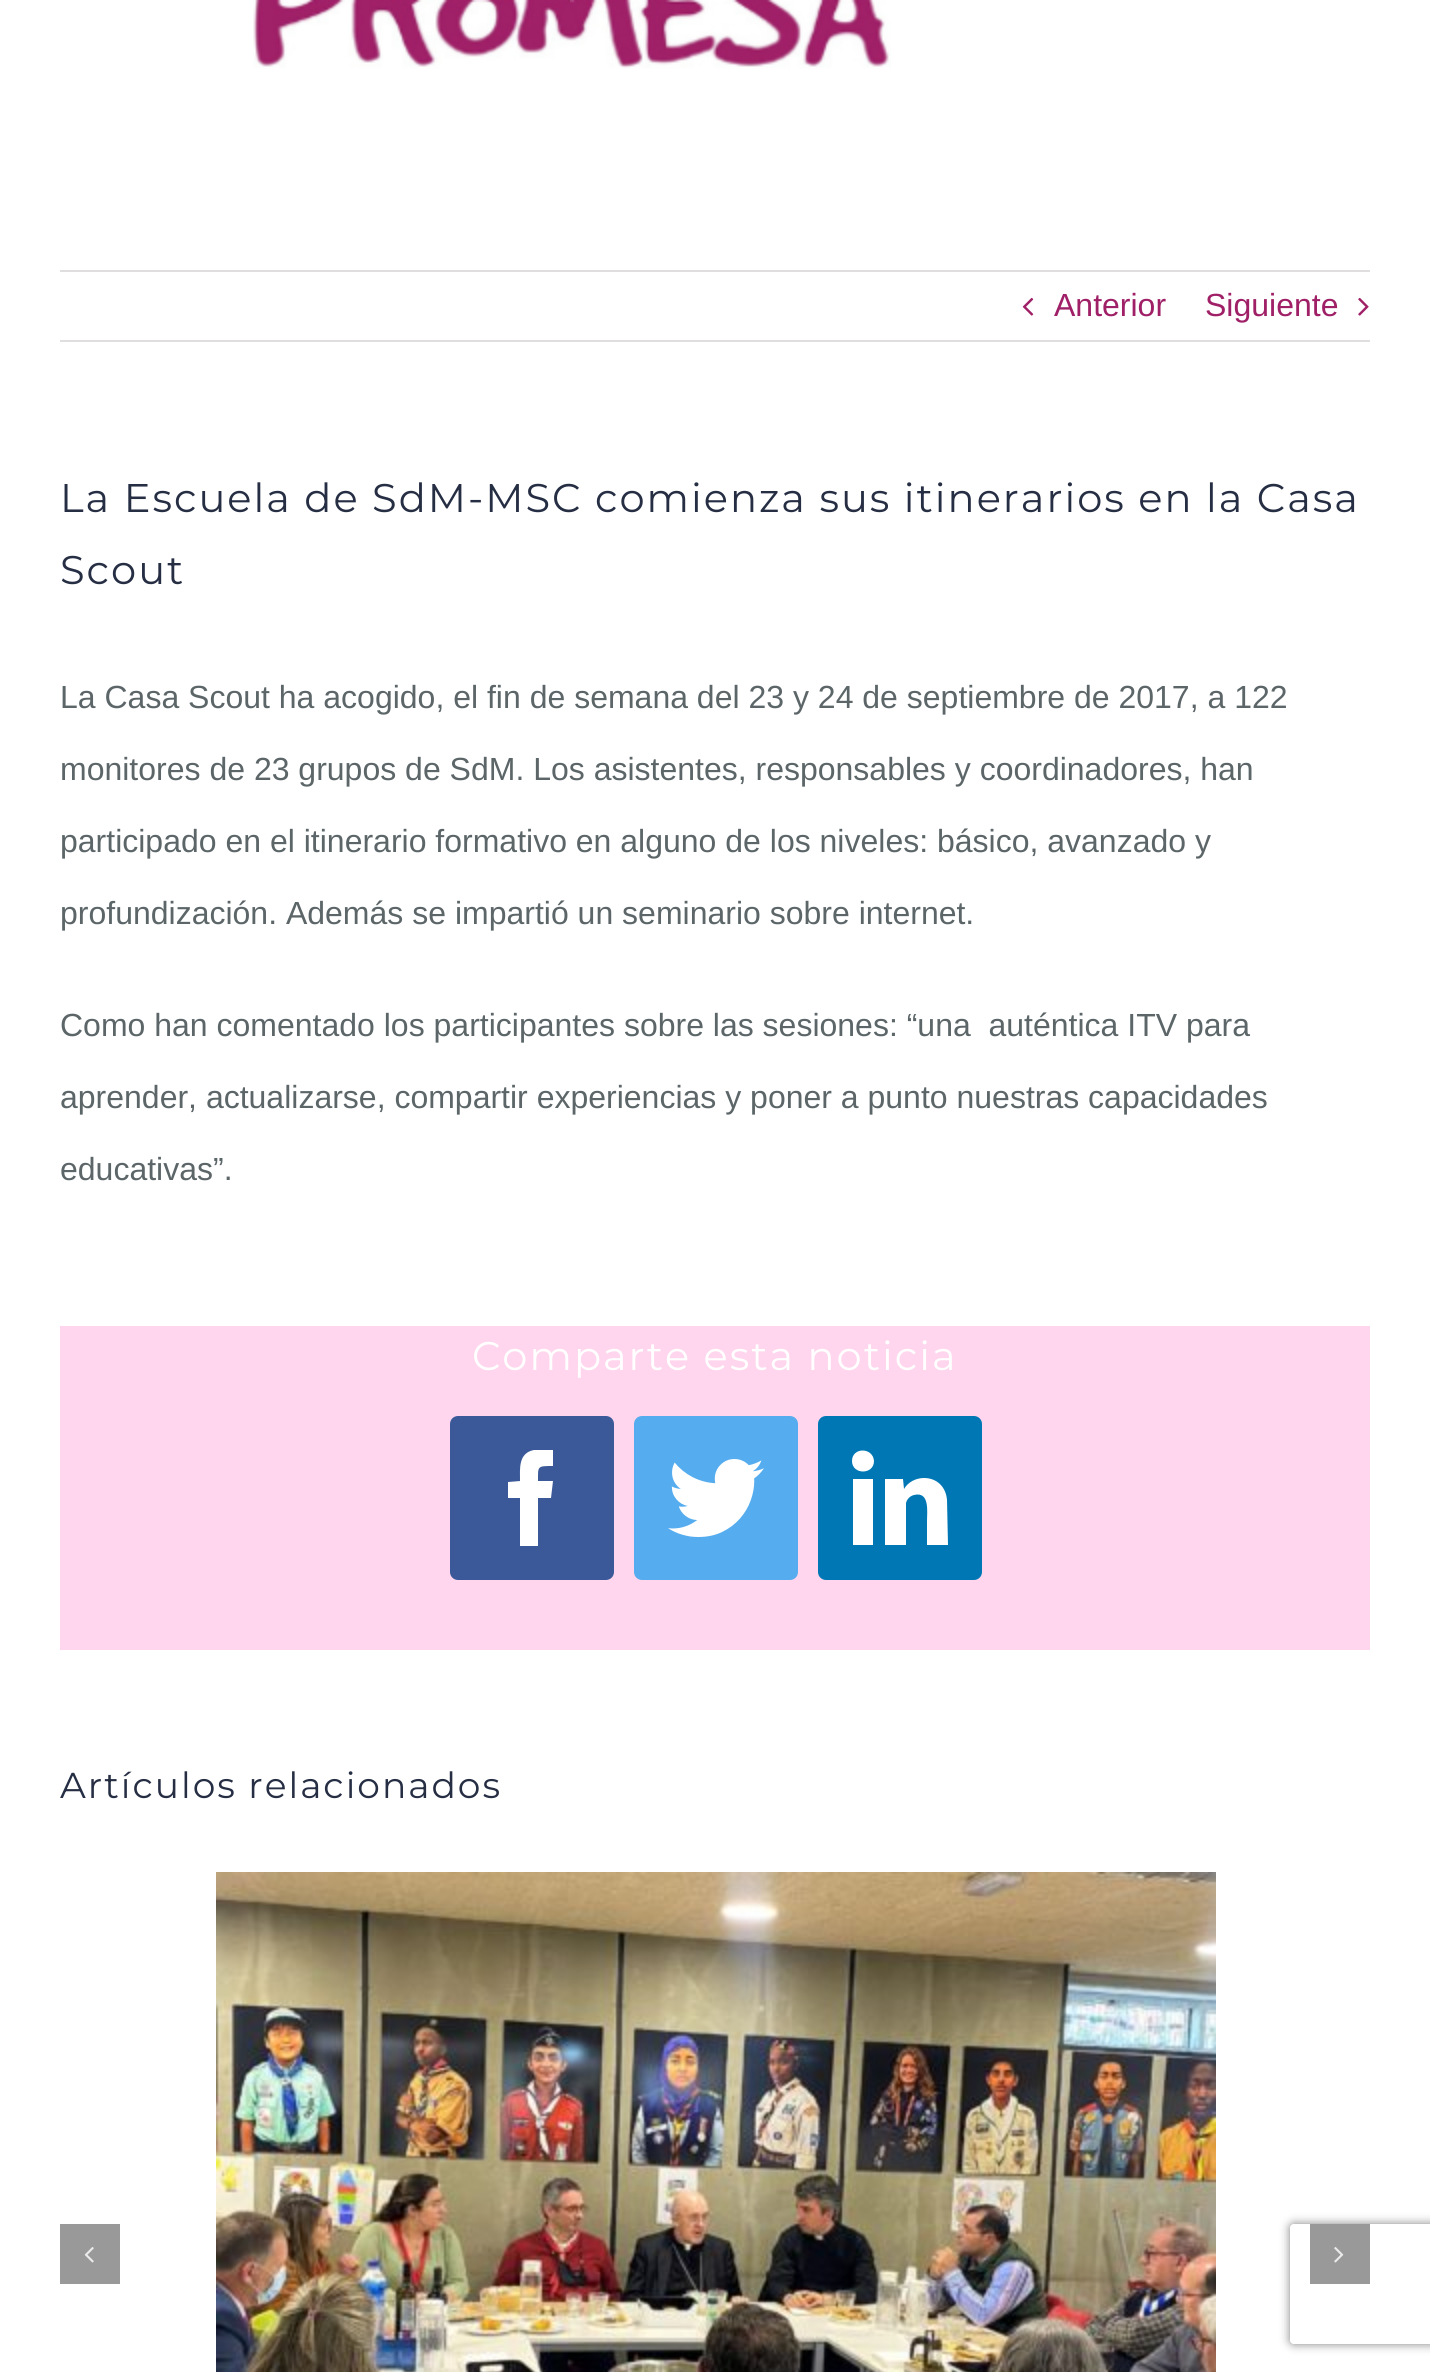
#include <cairo.h>
#include <math.h>
#include <stddef.h>

typedef struct { double x, y; const char *s; } line_t;

static void ink(cairo_t *ctx, unsigned color) {
    cairo_set_source_rgb(ctx, (color >> 16) / 255.0, (color >> 8 & 255) / 255.0, (color & 255) / 255.0);
}

static void write_spaced(cairo_t *ctx, double x, double y, const char *s, double letter, double word) {
    cairo_move_to(ctx, x, y);
    while (*s) {
        char ch[5] = {0};
        int n = 0;
        do ch[n++] = *s++; while ((*s & 0xC0) == 0x80);
        cairo_show_text(ctx, ch);
        cairo_rel_move_to(ctx, letter + word * (*ch == ' '), 0);
    }
}

static void round_path(cairo_t *ctx, double x, double y, double w, double h, double r) {
    cairo_new_sub_path(ctx);
    cairo_arc(ctx, x + w - r, y + h - r, r, 0, M_PI / 2);
    cairo_arc(ctx, x + r, y + h - r, r, M_PI / 2, M_PI);
    cairo_arc(ctx, x + r, y + r, r, M_PI, 1.5 * M_PI);
    cairo_arc(ctx, x + w - r, y + r, r, 1.5 * M_PI, 2 * M_PI);
    cairo_close_path(ctx);
}

static void blur_box(cairo_t *ctx, double x, double y, double w, double h, double r, double blur, double alpha) {
    cairo_push_group_with_content(ctx, CAIRO_CONTENT_ALPHA);
    cairo_set_operator(ctx, CAIRO_OPERATOR_SOURCE);
    for (int i = 15; i >= -15 && fmin(w, h) + blur * i / 3 > 0; i -= 2) {
        double e = blur * i / 6;
        cairo_set_source_rgba(ctx, 0, 0, 0, alpha * erfc((i - 1) / 8.5) / 2);
        round_path(ctx, x - e, y - e, w + 2 * e, h + 2 * e, fmax(0, fmin(r + e + blur * .6, fmin(w, h) / 2 + e)));
        cairo_fill(ctx);
    }
    cairo_pattern_t *soft = cairo_pop_group(ctx);
    cairo_mask(ctx, soft);
    cairo_pattern_destroy(soft);
}

static void paste(cairo_t *ctx, const char *path, double x, double y, double w, double h) {
    cairo_surface_t *image = cairo_image_surface_create_from_png(path);
    cairo_save(ctx);
    cairo_set_source_surface(ctx, image, x, y);
    cairo_rectangle(ctx, x, y, w, h);
    cairo_fill(ctx);
    cairo_restore(ctx);
    cairo_surface_destroy(image);
}

int main(void) {
    cairo_surface_t *surface = cairo_image_surface_create(CAIRO_FORMAT_RGB24, 1430, 2372);
    cairo_t *ctx = cairo_create(surface);
    cairo_font_options_t *options = cairo_font_options_create();
    cairo_font_options_set_hint_metrics(options, CAIRO_HINT_METRICS_OFF);
    cairo_font_options_set_hint_style(options, CAIRO_HINT_STYLE_NONE);
    cairo_set_font_options(ctx, options);
    cairo_set_miter_limit(ctx, 4);
    ink(ctx, 0xFFFFFF);
    cairo_paint(ctx);
    paste(ctx, "media/1.png", 253, 0, 638, 69);
    ink(ctx, 0xE0DEDE);
    cairo_rectangle(ctx, 60, 270, 1310, 2);
    cairo_fill(ctx);
    cairo_rectangle(ctx, 60, 340, 1310, 2);
    cairo_fill(ctx);
    paste(ctx, "media/2.png", 1022, 297, 12, 19);
    cairo_select_font_face(ctx, "Liberation Sans", CAIRO_FONT_SLANT_NORMAL, CAIRO_FONT_WEIGHT_NORMAL);
    cairo_set_font_size(ctx, 32);
    ink(ctx, 0x9F2067);
    cairo_move_to(ctx, 1054, 316);
    cairo_show_text(ctx, "Anterior");
    cairo_move_to(ctx, 1205, 316);
    cairo_show_text(ctx, "Siguiente");
    paste(ctx, "media/3.png", 1358, 297, 11, 19);
    cairo_select_font_face(ctx, "Montserrat Thin", CAIRO_FONT_SLANT_NORMAL, CAIRO_FONT_WEIGHT_NORMAL);
    cairo_set_font_size(ctx, 40);
    ink(ctx, 0x262E44);
    write_spaced(ctx, 60, 512, "La Escuela de SdM-MSC comienza sus itinerarios en la Casa", 2, 0);
    write_spaced(ctx, 60, 584, "Scout", 2, 0);
    cairo_select_font_face(ctx, "Liberation Sans", CAIRO_FONT_SLANT_NORMAL, CAIRO_FONT_WEIGHT_NORMAL);
    cairo_set_font_size(ctx, 32);
    ink(ctx, 0x5C6668);
    {
        static const line_t items[] = {
            {60, 708, "La Casa Scout ha acogido, el fin de semana del 23 y 24 de septiembre de 2017, a 122"},
            {60, 780, "monitores de 23 grupos de SdM. Los asistentes, responsables y coordinadores, han"},
            {60, 852, "participado en el itinerario formativo en alguno de los niveles: básico, avanzado y"},
            {60, 924, "profundización. Además se impartió un seminario sobre internet."},
            {60, 1036, "Como han comentado los participantes sobre las sesiones: “una  auténtica ITV para"},
            {60, 1108, "aprender, actualizarse, compartir experiencias y poner a punto nuestras capacidades"},
            {60, 1180, "educativas”."},
        };
        for (size_t i = 0; i < sizeof items / sizeof *items; i++) {
            cairo_move_to(ctx, items[i].x, items[i].y);
            cairo_show_text(ctx, items[i].s);
        }
    }
    ink(ctx, 0xFFD6ED);
    cairo_rectangle(ctx, 60, 1326, 1310, 324);
    cairo_fill(ctx);
    cairo_select_font_face(ctx, "Montserrat Thin", CAIRO_FONT_SLANT_NORMAL, CAIRO_FONT_WEIGHT_NORMAL);
    cairo_set_font_size(ctx, 40);
    ink(ctx, 0xFFFFFF);
    write_spaced(ctx, 472, 1370, "Comparte esta noticia", 2, 0);
    ink(ctx, 0x3B5998);
    round_path(ctx, 451, 1417, 162, 162, 7);
    cairo_fill_preserve(ctx);
    cairo_stroke(ctx);
    ink(ctx, 0xFFFFFF);
    cairo_new_path(ctx);
    cairo_move_to(ctx, 538, 1546);
    cairo_line_to(ctx, 520, 1546);
    cairo_line_to(ctx, 520, 1498);
    cairo_line_to(ctx, 508, 1498);
    cairo_line_to(ctx, 508, 1482);
    cairo_line_to(ctx, 520, 1481);
    cairo_curve_to(ctx, 520, 1469, 518, 1453, 534, 1450);
    cairo_line_to(ctx, 553, 1450);
    cairo_line_to(ctx, 553, 1466);
    cairo_curve_to(ctx, 537, 1466, 538, 1466, 538, 1481);
    cairo_line_to(ctx, 553, 1481);
    cairo_line_to(ctx, 551, 1498);
    cairo_line_to(ctx, 538, 1498);
    cairo_close_path(ctx);
    cairo_fill(ctx);
    ink(ctx, 0x55ACEE);
    round_path(ctx, 635, 1417, 162, 162, 7);
    cairo_fill_preserve(ctx);
    cairo_stroke(ctx);
    paste(ctx, "media/4.png", 668, 1459, 96, 78);
    ink(ctx, 0x0077B5);
    round_path(ctx, 819, 1417, 162, 162, 7);
    cairo_fill_preserve(ctx);
    cairo_stroke(ctx);
    ink(ctx, 0xFFFFFF);
    cairo_new_path(ctx);
    cairo_move_to(ctx, 874, 1461);
    cairo_curve_to(ctx, 874, 1475, 852, 1475, 852, 1461);
    cairo_curve_to(ctx, 852, 1447, 873, 1447, 874, 1461);
    cairo_close_path(ctx);
    cairo_move_to(ctx, 853, 1545);
    cairo_line_to(ctx, 853, 1479);
    cairo_line_to(ctx, 873, 1479);
    cairo_line_to(ctx, 873, 1545);
    cairo_close_path(ctx);
    cairo_move_to(ctx, 885, 1500);
    cairo_line_to(ctx, 885, 1479);
    cairo_line_to(ctx, 903, 1479);
    cairo_line_to(ctx, 904, 1489);
    cairo_curve_to(ctx, 908, 1482, 916, 1478, 924, 1478);
    cairo_curve_to(ctx, 937, 1478, 946, 1487, 947, 1500);
    cairo_line_to(ctx, 948, 1545);
    cairo_line_to(ctx, 927, 1545);
    cairo_line_to(ctx, 927, 1521);
    cairo_curve_to(ctx, 927, 1512, 930, 1491, 914, 1495);
    cairo_curve_to(ctx, 910, 1496, 907, 1499, 906, 1503);
    cairo_line_to(ctx, 906, 1545);
    cairo_line_to(ctx, 885, 1545);
    cairo_close_path(ctx);
    cairo_fill(ctx);
    cairo_set_font_size(ctx, 36);
    ink(ctx, 0x262E44);
    write_spaced(ctx, 60, 1798, "Artículos relacionados", 2, 0);
    paste(ctx, "media/5.png", 216, 1872, 1000, 500);
    ink(ctx, 0x999999);
    cairo_rectangle(ctx, 60, 2224, 60, 60);
    cairo_fill(ctx);
    paste(ctx, "media/6.png", 84, 2247, 10, 16);
    cairo_save(ctx);
    cairo_set_fill_rule(ctx, CAIRO_FILL_RULE_EVEN_ODD);
    cairo_new_path(ctx);
    cairo_move_to(ctx, 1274, 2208);
    cairo_line_to(ctx, 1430, 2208);
    cairo_line_to(ctx, 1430, 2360);
    cairo_line_to(ctx, 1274, 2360);
    cairo_close_path(ctx);
    cairo_move_to(ctx, 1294, 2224);
    cairo_line_to(ctx, 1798, 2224);
    cairo_curve_to(ctx, 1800, 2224, 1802, 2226, 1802, 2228);
    cairo_line_to(ctx, 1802, 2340);
    cairo_curve_to(ctx, 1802, 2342, 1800, 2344, 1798, 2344);
    cairo_line_to(ctx, 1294, 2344);
    cairo_curve_to(ctx, 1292, 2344, 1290, 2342, 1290, 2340);
    cairo_line_to(ctx, 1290, 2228);
    cairo_curve_to(ctx, 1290, 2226, 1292, 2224, 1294, 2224);
    cairo_close_path(ctx);
    cairo_clip(ctx);
    ink(ctx, 0x808080);
    blur_box(ctx, 1290, 2224, 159, 120, 4, 5, 1);
    cairo_restore(ctx);
    cairo_rectangle(ctx, 1310, 2224, 60, 60);
    cairo_fill(ctx);
    paste(ctx, "media/7.png", 1334, 2247, 10, 16);
    cairo_surface_write_to_png(surface, "image.png");
    cairo_font_options_destroy(options);
    cairo_destroy(ctx);
    cairo_surface_destroy(surface);
    return 0;
}
